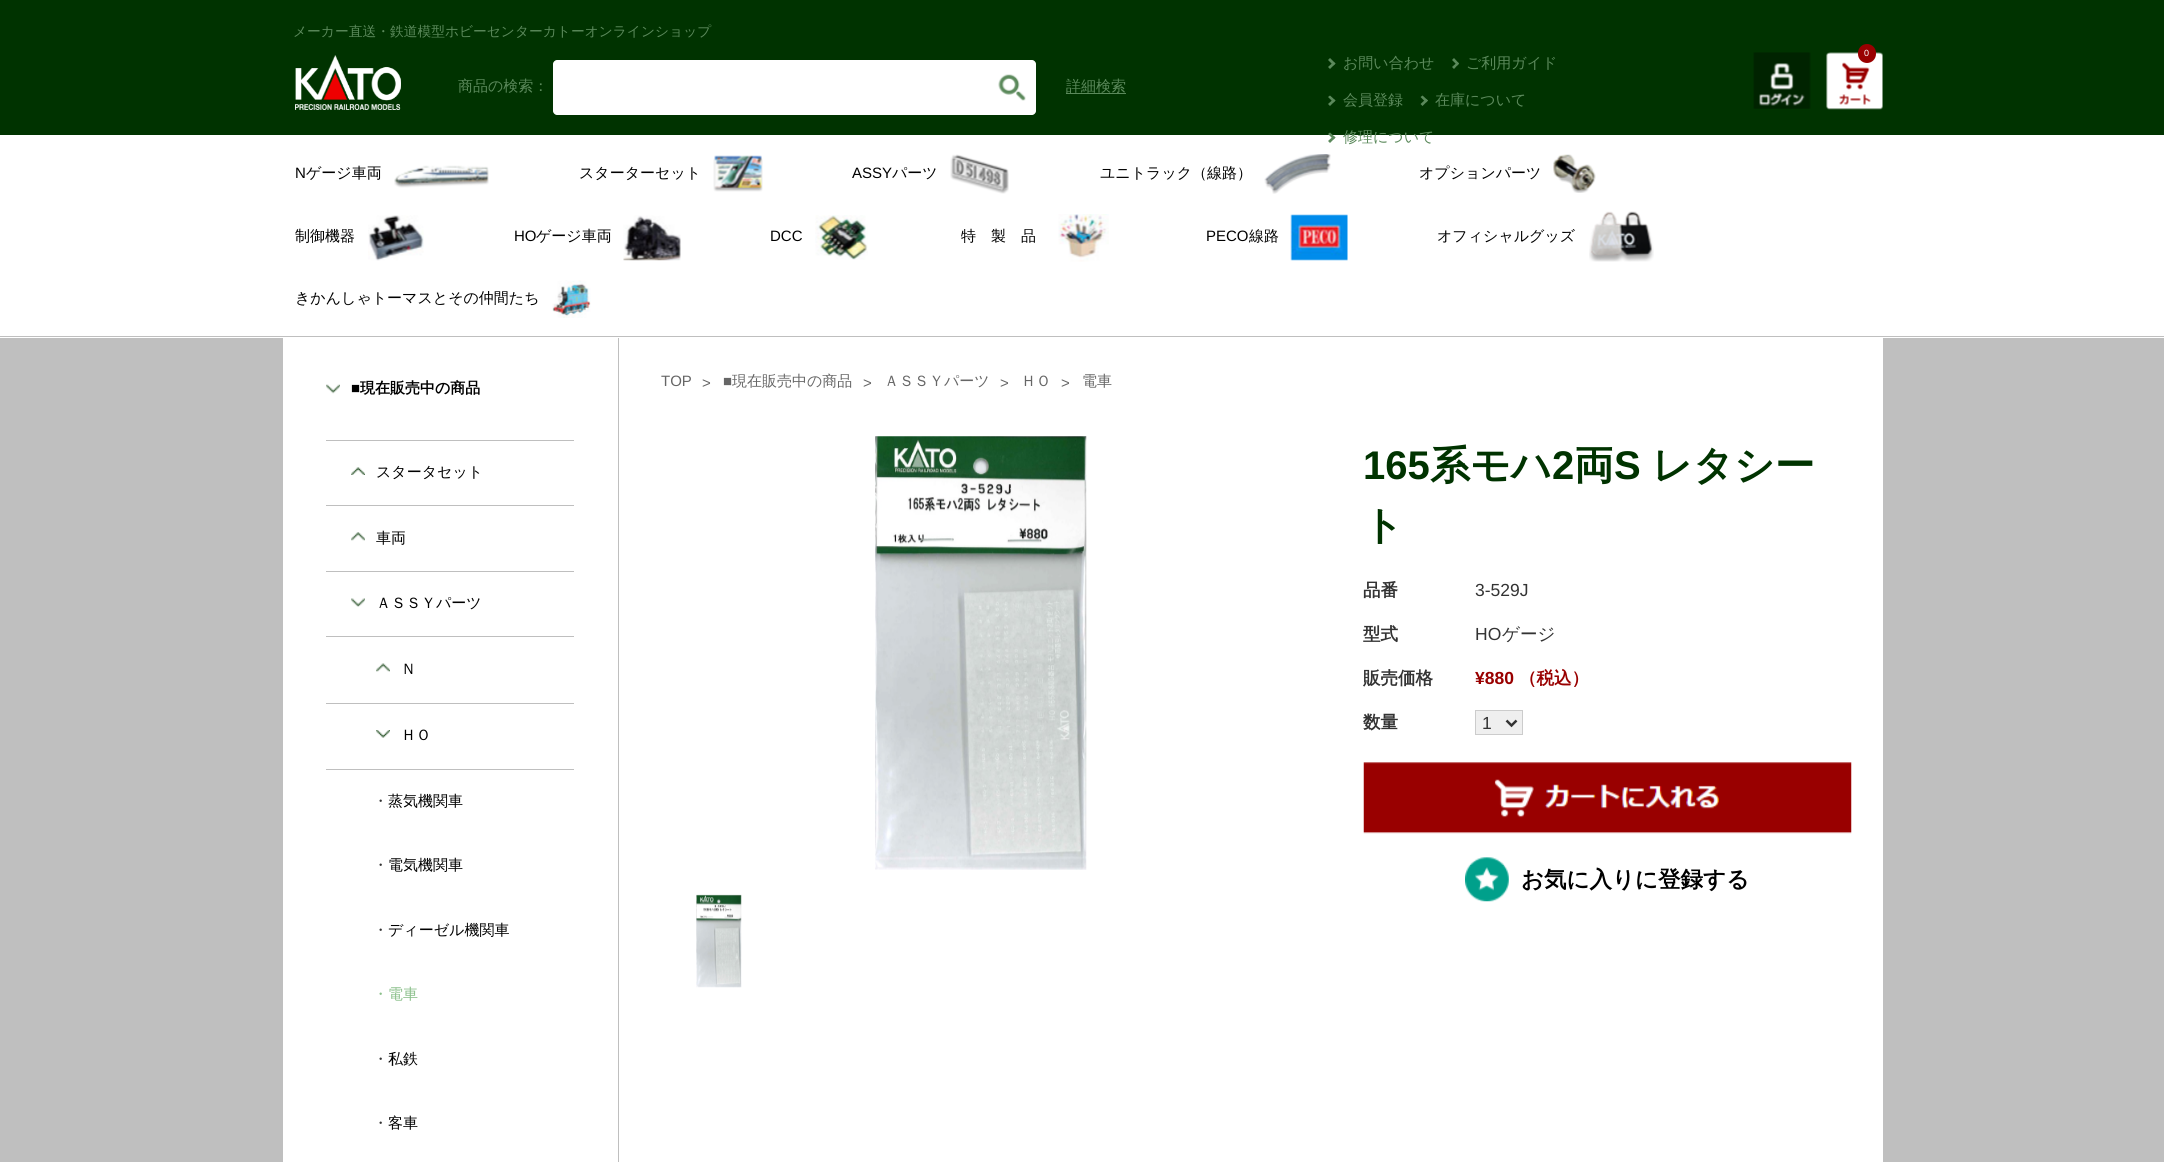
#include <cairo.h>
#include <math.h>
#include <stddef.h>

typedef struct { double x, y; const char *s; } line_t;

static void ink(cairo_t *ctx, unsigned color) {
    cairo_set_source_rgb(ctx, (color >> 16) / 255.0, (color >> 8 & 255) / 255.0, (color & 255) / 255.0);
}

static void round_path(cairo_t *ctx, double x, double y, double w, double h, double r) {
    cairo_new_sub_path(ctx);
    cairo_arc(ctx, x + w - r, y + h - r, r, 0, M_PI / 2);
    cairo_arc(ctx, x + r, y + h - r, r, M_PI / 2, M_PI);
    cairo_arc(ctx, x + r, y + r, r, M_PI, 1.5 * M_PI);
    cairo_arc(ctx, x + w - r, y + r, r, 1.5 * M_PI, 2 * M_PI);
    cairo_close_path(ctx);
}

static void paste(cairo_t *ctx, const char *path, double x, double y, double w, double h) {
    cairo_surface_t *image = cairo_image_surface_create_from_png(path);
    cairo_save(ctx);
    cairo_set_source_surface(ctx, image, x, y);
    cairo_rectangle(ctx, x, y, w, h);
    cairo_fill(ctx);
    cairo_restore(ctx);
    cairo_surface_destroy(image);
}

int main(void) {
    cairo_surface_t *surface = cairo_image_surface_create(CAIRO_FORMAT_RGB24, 2164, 1162);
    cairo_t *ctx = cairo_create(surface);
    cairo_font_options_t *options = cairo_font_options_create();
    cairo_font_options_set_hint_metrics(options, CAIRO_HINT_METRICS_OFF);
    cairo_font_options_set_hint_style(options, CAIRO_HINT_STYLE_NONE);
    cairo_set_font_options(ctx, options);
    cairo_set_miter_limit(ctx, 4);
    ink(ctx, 0xFFFFFF);
    cairo_paint(ctx);
    ink(ctx, 0x003300);
    cairo_rectangle(ctx, 0, 0, 2164, 135);
    cairo_fill(ctx);
    cairo_select_font_face(ctx, "WenQuanYi Zen Hei Medium", CAIRO_FONT_SLANT_NORMAL, CAIRO_FONT_WEIGHT_NORMAL);
    cairo_set_font_size(ctx, 13.75);
    ink(ctx, 0x5B895B);
    cairo_move_to(ctx, 293, 36);
    cairo_show_text(ctx, "メーカー直送・鉄道模型ホビーセンターカトーオンラインショップ");
    paste(ctx, "media/1.png", 1753, 52, 58, 57);
    paste(ctx, "media/2.png", 1826, 52, 57, 58);
    ink(ctx, 0x990000);
    round_path(ctx, 1858, 44, 18, 19, 9);
    cairo_fill(ctx);
    cairo_select_font_face(ctx, "Liberation Sans", CAIRO_FONT_SLANT_NORMAL, CAIRO_FONT_WEIGHT_NORMAL);
    cairo_set_font_size(ctx, 9);
    ink(ctx, 0xFFFFFF);
    cairo_move_to(ctx, 1864, 56);
    cairo_show_text(ctx, "0");
    paste(ctx, "media/3.png", 295, 55, 106, 55);
    cairo_select_font_face(ctx, "WenQuanYi Zen Hei Medium", CAIRO_FONT_SLANT_NORMAL, CAIRO_FONT_WEIGHT_NORMAL);
    cairo_set_font_size(ctx, 15);
    ink(ctx, 0x5B895B);
    cairo_move_to(ctx, 458, 91);
    cairo_show_text(ctx, "商品の検索：");
    ink(ctx, 0xFFFFFF);
    cairo_new_path(ctx);
    cairo_move_to(ctx, 557, 60);
    cairo_line_to(ctx, 986, 60);
    cairo_line_to(ctx, 986, 115);
    cairo_line_to(ctx, 557, 115);
    cairo_curve_to(ctx, 555, 115, 553, 113, 553, 111);
    cairo_line_to(ctx, 553, 64);
    cairo_curve_to(ctx, 553, 62, 555, 60, 557, 60);
    cairo_close_path(ctx);
    cairo_fill(ctx);
    cairo_new_path(ctx);
    cairo_move_to(ctx, 986, 60);
    cairo_line_to(ctx, 1032, 60);
    cairo_curve_to(ctx, 1034, 60, 1036, 62, 1036, 64);
    cairo_line_to(ctx, 1036, 111);
    cairo_curve_to(ctx, 1036, 113, 1034, 115, 1032, 115);
    cairo_line_to(ctx, 986, 115);
    cairo_close_path(ctx);
    cairo_fill(ctx);
    paste(ctx, "media/4.png", 998, 74, 28, 27);
    ink(ctx, 0x5B895B);
    cairo_rectangle(ctx, 1066, 93, 60, 1);
    cairo_fill(ctx);
    cairo_move_to(ctx, 1066, 91);
    cairo_show_text(ctx, "詳細検索");
    cairo_new_path(ctx);
    cairo_move_to(ctx, 1330, 58);
    cairo_line_to(ctx, 1335.5, 63.5);
    cairo_line_to(ctx, 1333.5, 65.5);
    cairo_line_to(ctx, 1328, 60);
    cairo_close_path(ctx);
    cairo_fill(ctx);
    cairo_new_path(ctx);
    cairo_move_to(ctx, 1333.5, 62);
    cairo_line_to(ctx, 1335.5, 63.5);
    cairo_line_to(ctx, 1330, 69);
    cairo_line_to(ctx, 1328, 67);
    cairo_close_path(ctx);
    cairo_fill(ctx);
    cairo_move_to(ctx, 1343, 68);
    cairo_show_text(ctx, "お問い合わせ");
    cairo_new_path(ctx);
    cairo_move_to(ctx, 1454, 58);
    cairo_line_to(ctx, 1459, 63.5);
    cairo_line_to(ctx, 1457.5, 65.5);
    cairo_line_to(ctx, 1452, 60);
    cairo_close_path(ctx);
    cairo_fill(ctx);
    cairo_new_path(ctx);
    cairo_move_to(ctx, 1457.5, 62);
    cairo_line_to(ctx, 1459, 63.5);
    cairo_line_to(ctx, 1454, 69);
    cairo_line_to(ctx, 1452, 67);
    cairo_close_path(ctx);
    cairo_fill(ctx);
    cairo_move_to(ctx, 1466, 68);
    cairo_show_text(ctx, "ご利用ガイド");
    cairo_new_path(ctx);
    cairo_move_to(ctx, 1330, 95.5);
    cairo_line_to(ctx, 1335.5, 100.5);
    cairo_line_to(ctx, 1333.5, 102.5);
    cairo_line_to(ctx, 1328, 97);
    cairo_close_path(ctx);
    cairo_fill(ctx);
    cairo_new_path(ctx);
    cairo_move_to(ctx, 1333.5, 99);
    cairo_line_to(ctx, 1335.5, 100.5);
    cairo_line_to(ctx, 1330, 106);
    cairo_line_to(ctx, 1328, 104);
    cairo_close_path(ctx);
    cairo_fill(ctx);
    cairo_move_to(ctx, 1343, 105);
    cairo_show_text(ctx, "会員登録");
    cairo_new_path(ctx);
    cairo_move_to(ctx, 1422.5, 95.5);
    cairo_line_to(ctx, 1428, 100.5);
    cairo_line_to(ctx, 1426, 102.5);
    cairo_line_to(ctx, 1420.5, 97);
    cairo_close_path(ctx);
    cairo_fill(ctx);
    cairo_new_path(ctx);
    cairo_move_to(ctx, 1426, 99);
    cairo_line_to(ctx, 1428, 100.5);
    cairo_line_to(ctx, 1422.5, 106);
    cairo_line_to(ctx, 1420.5, 104);
    cairo_close_path(ctx);
    cairo_fill(ctx);
    cairo_move_to(ctx, 1435, 105);
    cairo_show_text(ctx, "在庫について");
    cairo_new_path(ctx);
    cairo_move_to(ctx, 1330, 132.5);
    cairo_line_to(ctx, 1335.5, 137.5);
    cairo_line_to(ctx, 1333.5, 139.5);
    cairo_line_to(ctx, 1328, 134);
    cairo_close_path(ctx);
    cairo_fill(ctx);
    cairo_new_path(ctx);
    cairo_move_to(ctx, 1333.5, 136);
    cairo_line_to(ctx, 1335.5, 137.5);
    cairo_line_to(ctx, 1330, 143);
    cairo_line_to(ctx, 1328, 141);
    cairo_close_path(ctx);
    cairo_fill(ctx);
    cairo_move_to(ctx, 1343, 142);
    cairo_show_text(ctx, "修理について");
    ink(ctx, 0xBFBFBF);
    cairo_rectangle(ctx, 0, 336, 2164, 1);
    cairo_fill(ctx);
    cairo_select_font_face(ctx, "Liberation Sans", CAIRO_FONT_SLANT_NORMAL, CAIRO_FONT_WEIGHT_NORMAL);
    ink(ctx, 0x000000);
    cairo_move_to(ctx, 295, 178);
    cairo_show_text(ctx, "N");
    cairo_select_font_face(ctx, "WenQuanYi Zen Hei Medium", CAIRO_FONT_SLANT_NORMAL, CAIRO_FONT_WEIGHT_NORMAL);
    cairo_move_to(ctx, 306, 178);
    cairo_show_text(ctx, "ゲージ車両");
    paste(ctx, "media/5.png", 394, 165, 95, 23);
    cairo_move_to(ctx, 579, 178);
    cairo_show_text(ctx, "スターターセット");
    paste(ctx, "media/6.png", 713, 155, 50, 37);
    cairo_select_font_face(ctx, "Liberation Sans", CAIRO_FONT_SLANT_NORMAL, CAIRO_FONT_WEIGHT_NORMAL);
    cairo_move_to(ctx, 852, 178);
    cairo_show_text(ctx, "ASSY");
    cairo_select_font_face(ctx, "WenQuanYi Zen Hei Medium", CAIRO_FONT_SLANT_NORMAL, CAIRO_FONT_WEIGHT_NORMAL);
    cairo_move_to(ctx, 892, 178);
    cairo_show_text(ctx, "パーツ");
    paste(ctx, "media/7.png", 950, 154, 59, 40);
    cairo_move_to(ctx, 1100, 178);
    cairo_show_text(ctx, "ユニトラック（線路）");
    paste(ctx, "media/8.png", 1264, 154, 67, 40);
    cairo_move_to(ctx, 1419, 178);
    cairo_show_text(ctx, "オプションパーツ");
    paste(ctx, "media/9.png", 1553, 154, 43, 39);
    cairo_move_to(ctx, 295, 241);
    cairo_show_text(ctx, "制御機器");
    paste(ctx, "media/10.png", 368, 215, 56, 46);
    cairo_select_font_face(ctx, "Liberation Sans", CAIRO_FONT_SLANT_NORMAL, CAIRO_FONT_WEIGHT_NORMAL);
    cairo_move_to(ctx, 514, 241);
    cairo_show_text(ctx, "HO");
    cairo_select_font_face(ctx, "WenQuanYi Zen Hei Medium", CAIRO_FONT_SLANT_NORMAL, CAIRO_FONT_WEIGHT_NORMAL);
    cairo_move_to(ctx, 536, 241);
    cairo_show_text(ctx, "ゲージ車両");
    paste(ctx, "media/11.png", 623, 215, 58, 46);
    cairo_select_font_face(ctx, "Liberation Sans", CAIRO_FONT_SLANT_NORMAL, CAIRO_FONT_WEIGHT_NORMAL);
    cairo_move_to(ctx, 770, 241);
    cairo_show_text(ctx, "DCC");
    paste(ctx, "media/12.png", 815, 215, 53, 45);
    cairo_select_font_face(ctx, "WenQuanYi Zen Hei Medium", CAIRO_FONT_SLANT_NORMAL, CAIRO_FONT_WEIGHT_NORMAL);
    cairo_move_to(ctx, 961, 241);
    cairo_show_text(ctx, "特　製　品");
    paste(ctx, "media/13.png", 1058, 214, 51, 48);
    cairo_select_font_face(ctx, "Liberation Sans", CAIRO_FONT_SLANT_NORMAL, CAIRO_FONT_WEIGHT_NORMAL);
    cairo_move_to(ctx, 1206, 241);
    cairo_show_text(ctx, "PECO");
    cairo_select_font_face(ctx, "WenQuanYi Zen Hei Medium", CAIRO_FONT_SLANT_NORMAL, CAIRO_FONT_WEIGHT_NORMAL);
    cairo_move_to(ctx, 1249, 241);
    cairo_show_text(ctx, "線路");
    paste(ctx, "media/14.png", 1290, 214, 58, 47);
    cairo_move_to(ctx, 1437, 241);
    cairo_show_text(ctx, "オフィシャルグッズ");
    paste(ctx, "media/15.png", 1589, 211, 65, 51);
    cairo_move_to(ctx, 295, 303);
    cairo_show_text(ctx, "きかんしゃトーマスとその仲間たち");
    paste(ctx, "media/16.png", 552, 280, 39, 38);
    ink(ctx, 0xBFBFBF);
    cairo_rectangle(ctx, 0, 338, 2164, 824);
    cairo_fill(ctx);
    ink(ctx, 0xFFFFFF);
    cairo_rectangle(ctx, 283, 338, 1600, 824);
    cairo_fill(ctx);
    paste(ctx, "media/17.png", 326, 384, 14, 10);
    ink(ctx, 0xBFBFBF);
    cairo_rectangle(ctx, 326, 440, 248, 1);
    cairo_fill(ctx);
    cairo_select_font_face(ctx, "Liberation Sans", CAIRO_FONT_SLANT_NORMAL, CAIRO_FONT_WEIGHT_BOLD);
    ink(ctx, 0x000000);
    cairo_move_to(ctx, 351, 393);
    cairo_show_text(ctx, "■");
    cairo_select_font_face(ctx, "WenQuanYi Zen Hei", CAIRO_FONT_SLANT_NORMAL, CAIRO_FONT_WEIGHT_BOLD);
    cairo_move_to(ctx, 360, 393);
    cairo_show_text(ctx, "現在販売中の商品");
    paste(ctx, "media/18.png", 351, 467, 14, 8);
    ink(ctx, 0xBFBFBF);
    cairo_rectangle(ctx, 326, 505, 248, 1);
    cairo_fill(ctx);
    cairo_select_font_face(ctx, "WenQuanYi Zen Hei Medium", CAIRO_FONT_SLANT_NORMAL, CAIRO_FONT_WEIGHT_NORMAL);
    ink(ctx, 0x000000);
    cairo_move_to(ctx, 376, 477);
    cairo_show_text(ctx, "スタータセット");
    paste(ctx, "media/19.png", 351, 532, 14, 9);
    ink(ctx, 0xBFBFBF);
    cairo_rectangle(ctx, 326, 571, 248, 1);
    cairo_fill(ctx);
    ink(ctx, 0x000000);
    cairo_move_to(ctx, 376, 543);
    cairo_show_text(ctx, "車両");
    paste(ctx, "media/20.png", 351, 598, 14, 9);
    cairo_move_to(ctx, 376, 608);
    cairo_show_text(ctx, "ＡＳＳＹパーツ");
    paste(ctx, "media/21.png", 376, 663, 14, 9);
    ink(ctx, 0xBFBFBF);
    cairo_rectangle(ctx, 326, 636, 248, 1);
    cairo_fill(ctx);
    cairo_rectangle(ctx, 326, 703, 248, 1);
    cairo_fill(ctx);
    ink(ctx, 0x000000);
    cairo_move_to(ctx, 401, 674);
    cairo_show_text(ctx, "Ｎ");
    paste(ctx, "media/22.png", 376, 730, 14, 8);
    cairo_move_to(ctx, 401, 740);
    cairo_show_text(ctx, "ＨＯ");
    ink(ctx, 0xBFBFBF);
    cairo_rectangle(ctx, 326, 769, 248, 1);
    cairo_fill(ctx);
    ink(ctx, 0x333333);
    cairo_move_to(ctx, 373, 806);
    cairo_show_text(ctx, "・");
    ink(ctx, 0x000000);
    cairo_move_to(ctx, 388, 806);
    cairo_show_text(ctx, "蒸気機関車");
    ink(ctx, 0x333333);
    cairo_move_to(ctx, 373, 870);
    cairo_show_text(ctx, "・");
    ink(ctx, 0x000000);
    cairo_move_to(ctx, 388, 870);
    cairo_show_text(ctx, "電気機関車");
    ink(ctx, 0x333333);
    cairo_move_to(ctx, 373, 935);
    cairo_show_text(ctx, "・");
    ink(ctx, 0x000000);
    cairo_move_to(ctx, 388, 935);
    cairo_show_text(ctx, "ディーゼル機関車");
    ink(ctx, 0x8ABF8A);
    cairo_move_to(ctx, 373, 999);
    cairo_show_text(ctx, "・電車");
    ink(ctx, 0x333333);
    cairo_move_to(ctx, 373, 1064);
    cairo_show_text(ctx, "・");
    ink(ctx, 0x000000);
    cairo_move_to(ctx, 388, 1064);
    cairo_show_text(ctx, "私鉄");
    ink(ctx, 0x333333);
    cairo_move_to(ctx, 373, 1128);
    cairo_show_text(ctx, "・");
    ink(ctx, 0x000000);
    cairo_move_to(ctx, 388, 1128);
    cairo_show_text(ctx, "客車");
    ink(ctx, 0xBFBFBF);
    cairo_rectangle(ctx, 618, 338, 1, 824);
    cairo_fill(ctx);
    cairo_select_font_face(ctx, "Liberation Sans", CAIRO_FONT_SLANT_NORMAL, CAIRO_FONT_WEIGHT_NORMAL);
    ink(ctx, 0x666666);
    {
        static const line_t items[] = {
            {661, 386, "TOP"},
            {702, 388, ">"},
            {723, 386, "■"},
        };
        for (size_t i = 0; i < sizeof items / sizeof *items; i++) {
            cairo_move_to(ctx, items[i].x, items[i].y);
            cairo_show_text(ctx, items[i].s);
        }
    }
    cairo_select_font_face(ctx, "WenQuanYi Zen Hei Medium", CAIRO_FONT_SLANT_NORMAL, CAIRO_FONT_WEIGHT_NORMAL);
    cairo_move_to(ctx, 732, 386);
    cairo_show_text(ctx, "現在販売中の商品");
    cairo_select_font_face(ctx, "Liberation Sans", CAIRO_FONT_SLANT_NORMAL, CAIRO_FONT_WEIGHT_NORMAL);
    cairo_move_to(ctx, 863, 388);
    cairo_show_text(ctx, ">");
    cairo_select_font_face(ctx, "WenQuanYi Zen Hei Medium", CAIRO_FONT_SLANT_NORMAL, CAIRO_FONT_WEIGHT_NORMAL);
    cairo_move_to(ctx, 884, 386);
    cairo_show_text(ctx, "ＡＳＳＹパーツ");
    cairo_select_font_face(ctx, "Liberation Sans", CAIRO_FONT_SLANT_NORMAL, CAIRO_FONT_WEIGHT_NORMAL);
    cairo_move_to(ctx, 1000, 388);
    cairo_show_text(ctx, ">");
    cairo_select_font_face(ctx, "WenQuanYi Zen Hei Medium", CAIRO_FONT_SLANT_NORMAL, CAIRO_FONT_WEIGHT_NORMAL);
    cairo_move_to(ctx, 1021, 386);
    cairo_show_text(ctx, "ＨＯ");
    cairo_select_font_face(ctx, "Liberation Sans", CAIRO_FONT_SLANT_NORMAL, CAIRO_FONT_WEIGHT_NORMAL);
    cairo_move_to(ctx, 1061, 388);
    cairo_show_text(ctx, ">");
    cairo_select_font_face(ctx, "WenQuanYi Zen Hei Medium", CAIRO_FONT_SLANT_NORMAL, CAIRO_FONT_WEIGHT_NORMAL);
    cairo_move_to(ctx, 1082, 386);
    cairo_show_text(ctx, "電車");
    paste(ctx, "media/23.png", 875, 436, 212, 434);
    paste(ctx, "media/24.png", 696, 894, 46, 94);
    cairo_select_font_face(ctx, "Liberation Sans", CAIRO_FONT_SLANT_NORMAL, CAIRO_FONT_WEIGHT_BOLD);
    cairo_set_font_size(ctx, 40);
    ink(ctx, 0x003300);
    cairo_move_to(ctx, 1363, 479);
    cairo_show_text(ctx, "165");
    cairo_select_font_face(ctx, "WenQuanYi Zen Hei", CAIRO_FONT_SLANT_NORMAL, CAIRO_FONT_WEIGHT_BOLD);
    cairo_move_to(ctx, 1430, 479);
    cairo_show_text(ctx, "系モハ");
    cairo_select_font_face(ctx, "Liberation Sans", CAIRO_FONT_SLANT_NORMAL, CAIRO_FONT_WEIGHT_BOLD);
    cairo_move_to(ctx, 1552, 479);
    cairo_show_text(ctx, "2");
    cairo_select_font_face(ctx, "WenQuanYi Zen Hei", CAIRO_FONT_SLANT_NORMAL, CAIRO_FONT_WEIGHT_BOLD);
    cairo_move_to(ctx, 1574, 479);
    cairo_show_text(ctx, "両");
    cairo_select_font_face(ctx, "Liberation Sans", CAIRO_FONT_SLANT_NORMAL, CAIRO_FONT_WEIGHT_BOLD);
    cairo_move_to(ctx, 1614, 479);
    cairo_show_text(ctx, "S");
    cairo_select_font_face(ctx, "WenQuanYi Zen Hei", CAIRO_FONT_SLANT_NORMAL, CAIRO_FONT_WEIGHT_BOLD);
    cairo_move_to(ctx, 1652, 479);
    cairo_show_text(ctx, "レタシー");
    cairo_move_to(ctx, 1363, 539);
    cairo_show_text(ctx, "ト");
    cairo_set_font_size(ctx, 17.5);
    ink(ctx, 0x333333);
    cairo_move_to(ctx, 1363, 596);
    cairo_show_text(ctx, "品番");
    cairo_select_font_face(ctx, "Liberation Sans", CAIRO_FONT_SLANT_NORMAL, CAIRO_FONT_WEIGHT_NORMAL);
    cairo_move_to(ctx, 1475, 596);
    cairo_show_text(ctx, "3-529J");
    cairo_select_font_face(ctx, "WenQuanYi Zen Hei", CAIRO_FONT_SLANT_NORMAL, CAIRO_FONT_WEIGHT_BOLD);
    cairo_move_to(ctx, 1363, 640);
    cairo_show_text(ctx, "型式");
    cairo_select_font_face(ctx, "Liberation Sans", CAIRO_FONT_SLANT_NORMAL, CAIRO_FONT_WEIGHT_NORMAL);
    cairo_move_to(ctx, 1475, 640);
    cairo_show_text(ctx, "HO");
    cairo_select_font_face(ctx, "WenQuanYi Zen Hei Medium", CAIRO_FONT_SLANT_NORMAL, CAIRO_FONT_WEIGHT_NORMAL);
    cairo_move_to(ctx, 1502, 640);
    cairo_show_text(ctx, "ゲージ");
    cairo_select_font_face(ctx, "WenQuanYi Zen Hei", CAIRO_FONT_SLANT_NORMAL, CAIRO_FONT_WEIGHT_BOLD);
    cairo_move_to(ctx, 1363, 684);
    cairo_show_text(ctx, "販売価格");
    cairo_select_font_face(ctx, "Liberation Sans", CAIRO_FONT_SLANT_NORMAL, CAIRO_FONT_WEIGHT_BOLD);
    ink(ctx, 0x990000);
    cairo_move_to(ctx, 1475, 684);
    cairo_show_text(ctx, "¥880");
    cairo_select_font_face(ctx, "WenQuanYi Zen Hei", CAIRO_FONT_SLANT_NORMAL, CAIRO_FONT_WEIGHT_BOLD);
    cairo_move_to(ctx, 1519, 684);
    cairo_show_text(ctx, "（税込）");
    ink(ctx, 0x333333);
    cairo_move_to(ctx, 1363, 728);
    cairo_show_text(ctx, "数量");
    ink(ctx, 0xEFEFEF);
    cairo_rectangle(ctx, 1475.5, 710.5, 47, 24);
    cairo_fill_preserve(ctx);
    ink(ctx, 0xCCCCCC);
    cairo_set_line_width(ctx, 1);
    cairo_stroke(ctx);
    cairo_new_path(ctx);
    cairo_move_to(ctx, 1506.5, 720.5);
    cairo_line_to(ctx, 1511.5, 725.5);
    cairo_line_to(ctx, 1516.5, 720.5);
    ink(ctx, 0x333333);
    cairo_set_line_width(ctx, 2.5);
    cairo_stroke(ctx);
    cairo_select_font_face(ctx, "Liberation Sans", CAIRO_FONT_SLANT_NORMAL, CAIRO_FONT_WEIGHT_NORMAL);
    cairo_move_to(ctx, 1482, 729);
    cairo_show_text(ctx, "1");
    paste(ctx, "media/25.png", 1363, 762, 489, 72);
    paste(ctx, "media/26.png", 1465, 857, 44, 45);
    cairo_select_font_face(ctx, "WenQuanYi Zen Hei", CAIRO_FONT_SLANT_NORMAL, CAIRO_FONT_WEIGHT_BOLD);
    cairo_set_font_size(ctx, 22.5);
    ink(ctx, 0x000000);
    cairo_move_to(ctx, 1521, 887);
    cairo_show_text(ctx, "お気に入りに登録する");
    cairo_surface_write_to_png(surface, "image.png");
    cairo_font_options_destroy(options);
    cairo_destroy(ctx);
    cairo_surface_destroy(surface);
    return 0;
}
